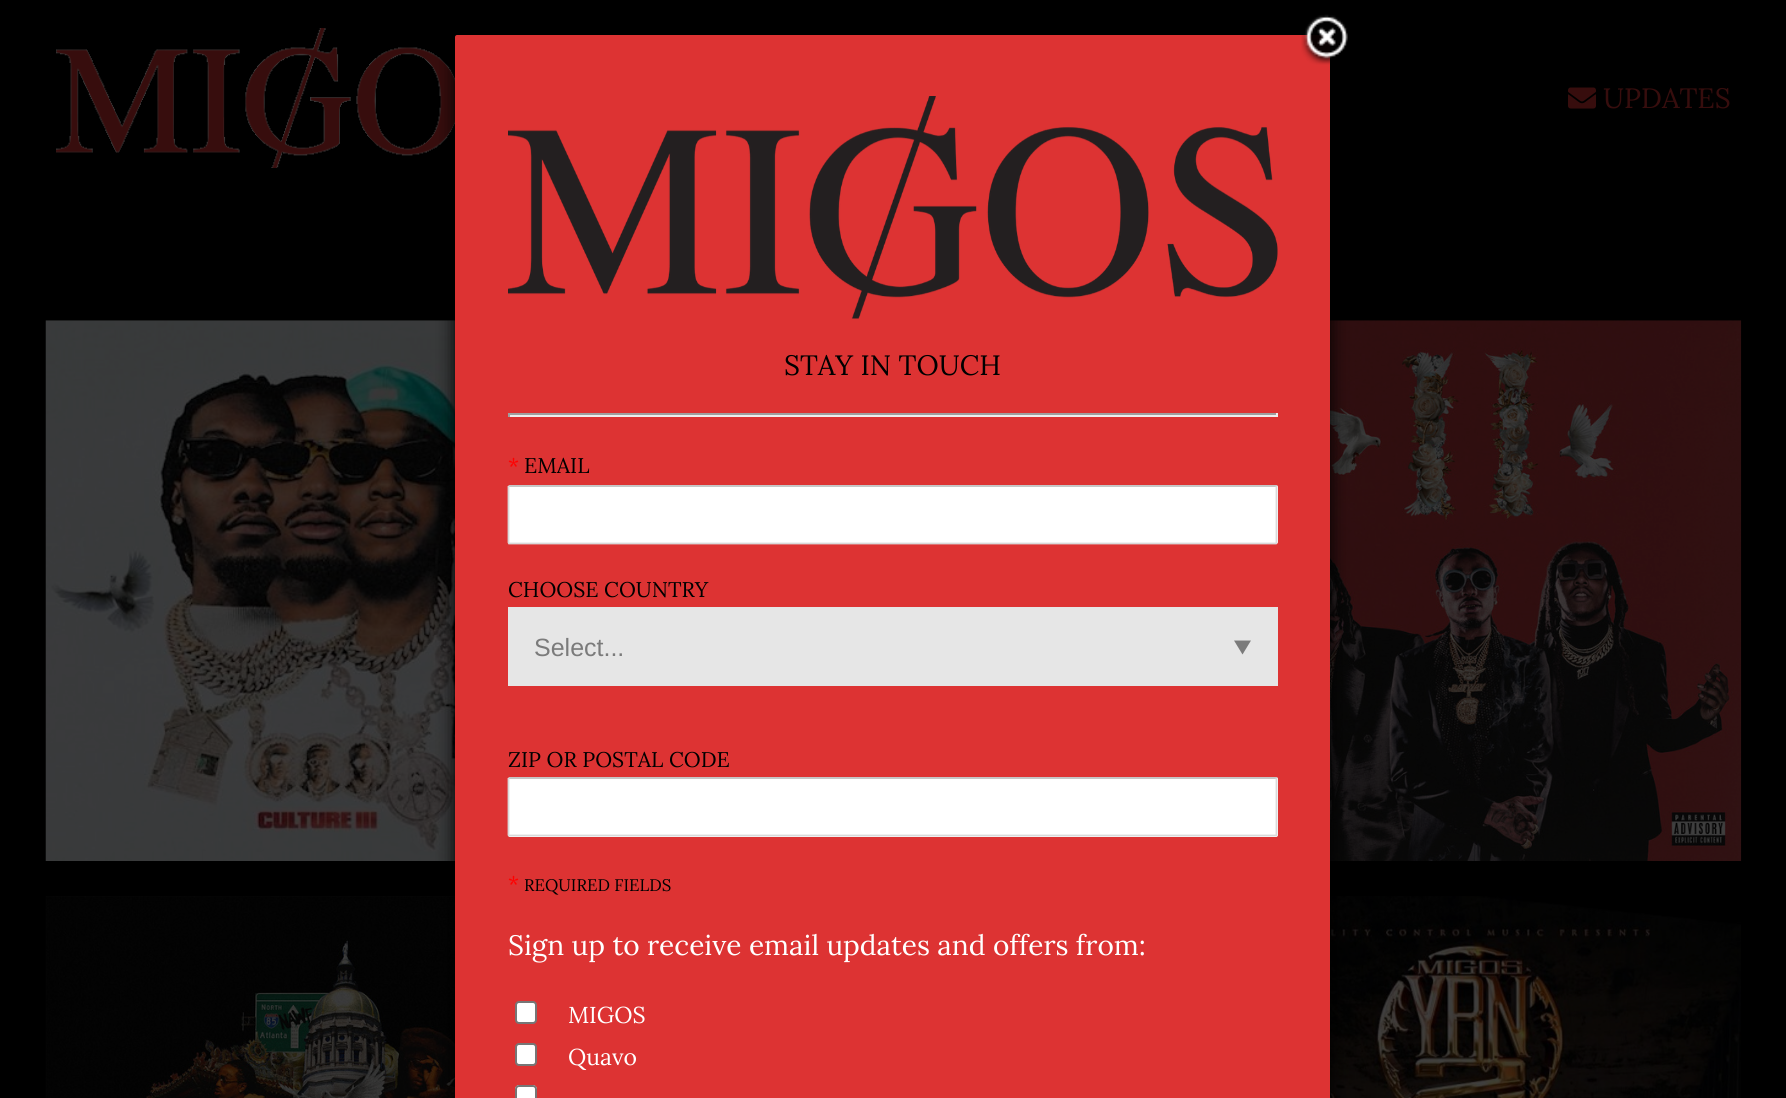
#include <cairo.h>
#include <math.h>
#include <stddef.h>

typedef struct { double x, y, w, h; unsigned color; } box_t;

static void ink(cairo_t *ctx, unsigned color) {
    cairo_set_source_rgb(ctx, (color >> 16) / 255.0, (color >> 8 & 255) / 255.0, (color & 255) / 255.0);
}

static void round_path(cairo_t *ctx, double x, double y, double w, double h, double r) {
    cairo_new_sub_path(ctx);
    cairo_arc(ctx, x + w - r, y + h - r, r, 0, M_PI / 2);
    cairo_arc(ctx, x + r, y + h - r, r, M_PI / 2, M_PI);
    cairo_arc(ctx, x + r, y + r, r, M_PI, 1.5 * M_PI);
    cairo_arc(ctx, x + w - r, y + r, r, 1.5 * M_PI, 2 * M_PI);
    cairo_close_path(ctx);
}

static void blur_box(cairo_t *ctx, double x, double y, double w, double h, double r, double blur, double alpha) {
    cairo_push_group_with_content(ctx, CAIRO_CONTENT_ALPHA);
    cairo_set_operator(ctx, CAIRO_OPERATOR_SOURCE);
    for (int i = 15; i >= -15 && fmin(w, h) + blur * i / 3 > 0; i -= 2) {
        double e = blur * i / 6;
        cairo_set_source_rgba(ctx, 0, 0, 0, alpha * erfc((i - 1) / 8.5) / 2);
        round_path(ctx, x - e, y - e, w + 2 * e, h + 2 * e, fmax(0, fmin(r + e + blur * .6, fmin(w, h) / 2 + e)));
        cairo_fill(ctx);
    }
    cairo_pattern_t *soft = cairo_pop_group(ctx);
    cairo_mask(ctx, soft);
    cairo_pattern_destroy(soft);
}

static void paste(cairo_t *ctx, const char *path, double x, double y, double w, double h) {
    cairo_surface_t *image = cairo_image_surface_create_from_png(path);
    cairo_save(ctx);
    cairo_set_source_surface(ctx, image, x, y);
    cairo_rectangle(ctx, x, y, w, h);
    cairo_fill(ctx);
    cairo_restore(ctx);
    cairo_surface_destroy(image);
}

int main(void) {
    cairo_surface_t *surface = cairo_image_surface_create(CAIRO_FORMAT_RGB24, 1786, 1098);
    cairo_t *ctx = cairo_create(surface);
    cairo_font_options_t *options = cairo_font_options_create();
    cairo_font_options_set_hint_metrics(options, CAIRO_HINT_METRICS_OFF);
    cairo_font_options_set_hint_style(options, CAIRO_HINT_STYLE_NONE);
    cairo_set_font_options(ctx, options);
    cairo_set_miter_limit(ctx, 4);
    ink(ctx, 0x000000);
    cairo_paint(ctx);
    paste(ctx, "media/1.png", 56, 28, 399, 140);
    paste(ctx, "media/2.png", 1568, 87, 28, 22);
    cairo_select_font_face(ctx, "Lora", CAIRO_FONT_SLANT_NORMAL, CAIRO_FONT_WEIGHT_NORMAL);
    cairo_set_font_size(ctx, 28);
    ink(ctx, 0x370D0D);
    cairo_move_to(ctx, 1603, 108);
    cairo_show_text(ctx, "UPDATES");
    paste(ctx, "media/3.png", 45, 320, 410, 541);
    paste(ctx, "media/4.png", 1330, 320, 412, 541);
    paste(ctx, "media/5.png", 45, 896, 410, 202);
    paste(ctx, "media/6.png", 1330, 896, 411, 202);
    ink(ctx, 0x000000);
    blur_box(ctx, 455, 35, 875, 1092, 2, 9, 1);
    ink(ctx, 0xDD3333);
    cairo_new_path(ctx);
    cairo_move_to(ctx, 457, 35);
    cairo_line_to(ctx, 1328, 35);
    cairo_curve_to(ctx, 1329, 35, 1330, 36, 1330, 37);
    cairo_line_to(ctx, 1330, 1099);
    cairo_line_to(ctx, 455, 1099);
    cairo_line_to(ctx, 455, 37);
    cairo_curve_to(ctx, 455, 36, 456, 35, 457, 35);
    cairo_close_path(ctx);
    cairo_fill(ctx);
    paste(ctx, "media/7.png", 1301, 14, 47, 51);
    paste(ctx, "media/8.png", 508, 96, 770, 223);
    ink(ctx, 0x000000);
    cairo_move_to(ctx, 784, 375);
    cairo_show_text(ctx, "STAY IN TOUCH");
    {
        static const box_t items[] = {
            {508, 413, 770, 2, 0x9F9F9F},
            {1276, 413, 2, 4, 0xEEEEEE},
            {508, 415, 770, 2, 0xEEEEEE},
            {508, 413, 2, 4, 0x9F9F9F},
        };
        for (size_t i = 0; i < sizeof items / sizeof *items; i++) {
            ink(ctx, items[i].color);
            cairo_rectangle(ctx, items[i].x, items[i].y, items[i].w, items[i].h);
            cairo_fill(ctx);
        }
    }
    cairo_set_font_size(ctx, 21.25);
    ink(ctx, 0xFF0000);
    cairo_move_to(ctx, 508, 473);
    cairo_show_text(ctx, "*");
    ink(ctx, 0x000000);
    cairo_move_to(ctx, 524, 473);
    cairo_show_text(ctx, "EMAIL");
    ink(ctx, 0xFFFFFF);
    round_path(ctx, 508, 485, 770, 59, 2);
    cairo_fill(ctx);
    cairo_set_source_rgba(ctx, 0.753, 0.753, 0.753, 0.9);
    cairo_rectangle(ctx, 509, 485, 768, 2);
    cairo_fill(ctx);
    cairo_new_path(ctx);
    cairo_move_to(ctx, 1276.5, 486);
    cairo_line_to(ctx, 1276.5, 542.5);
    cairo_line_to(ctx, 1276, 543.5);
    cairo_line_to(ctx, 509, 543.5);
    cairo_line_to(ctx, 508.5, 542.5);
    cairo_line_to(ctx, 508.5, 486);
    ink(ctx, 0xD9D9D9);
    cairo_set_line_width(ctx, 1.8);
    cairo_stroke(ctx);
    ink(ctx, 0x000000);
    cairo_move_to(ctx, 508, 597);
    cairo_show_text(ctx, "CHOOSE COUNTRY");
    ink(ctx, 0xE6E6E6);
    cairo_rectangle(ctx, 508, 607, 770, 79);
    cairo_fill(ctx);
    cairo_select_font_face(ctx, "Liberation Sans", CAIRO_FONT_SLANT_NORMAL, CAIRO_FONT_WEIGHT_NORMAL);
    cairo_set_font_size(ctx, 25);
    ink(ctx, 0x7B7B7B);
    cairo_move_to(ctx, 534, 656);
    cairo_show_text(ctx, "Select...");
    cairo_new_path(ctx);
    cairo_move_to(ctx, 1234, 640.5);
    cairo_line_to(ctx, 1251, 640.5);
    cairo_line_to(ctx, 1242.5, 654.5);
    cairo_close_path(ctx);
    cairo_fill(ctx);
    cairo_select_font_face(ctx, "Lora", CAIRO_FONT_SLANT_NORMAL, CAIRO_FONT_WEIGHT_NORMAL);
    cairo_set_font_size(ctx, 21.25);
    ink(ctx, 0x000000);
    cairo_move_to(ctx, 508, 767);
    cairo_show_text(ctx, "ZIP OR POSTAL CODE");
    ink(ctx, 0xFFFFFF);
    round_path(ctx, 508, 777, 770, 60, 2);
    cairo_fill(ctx);
    cairo_set_source_rgba(ctx, 0.753, 0.753, 0.753, 0.9);
    cairo_rectangle(ctx, 509, 777, 768, 2);
    cairo_fill(ctx);
    cairo_new_path(ctx);
    cairo_move_to(ctx, 1276.5, 778);
    cairo_line_to(ctx, 1276.5, 835);
    cairo_line_to(ctx, 1276, 835.5);
    cairo_line_to(ctx, 509, 835.5);
    cairo_line_to(ctx, 508.5, 835);
    cairo_line_to(ctx, 508.5, 778);
    ink(ctx, 0xD9D9D9);
    cairo_stroke(ctx);
    ink(ctx, 0xFF0000);
    cairo_move_to(ctx, 508, 891);
    cairo_show_text(ctx, "*");
    cairo_set_font_size(ctx, 16.75);
    ink(ctx, 0x000000);
    cairo_move_to(ctx, 524, 891);
    cairo_show_text(ctx, "REQUIRED FIELDS");
    cairo_set_font_size(ctx, 28);
    ink(ctx, 0xFFFFFF);
    cairo_move_to(ctx, 508, 955);
    cairo_show_text(ctx, "Sign up to receive email updates and offers from:");
    round_path(ctx, 516, 1002, 20, 21, 3);
    cairo_fill_preserve(ctx);
    ink(ctx, 0x767676);
    cairo_set_line_width(ctx, 2);
    cairo_stroke(ctx);
    cairo_set_font_size(ctx, 23);
    ink(ctx, 0xFFFFFF);
    cairo_move_to(ctx, 568, 1023);
    cairo_show_text(ctx, "MIGOS");
    round_path(ctx, 516, 1044, 20, 21, 3);
    cairo_fill_preserve(ctx);
    ink(ctx, 0x767676);
    cairo_stroke(ctx);
    ink(ctx, 0xFFFFFF);
    cairo_move_to(ctx, 568, 1065);
    cairo_show_text(ctx, "Quavo");
    cairo_new_path(ctx);
    cairo_move_to(ctx, 519, 1085);
    cairo_line_to(ctx, 533, 1085);
    cairo_curve_to(ctx, 535, 1085, 537, 1087, 537, 1089);
    cairo_line_to(ctx, 537, 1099);
    cairo_line_to(ctx, 515, 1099);
    cairo_line_to(ctx, 515, 1089);
    cairo_curve_to(ctx, 515, 1087, 517, 1085, 519, 1085);
    cairo_close_path(ctx);
    cairo_fill(ctx);
    round_path(ctx, 516, 1086, 20, 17, 3);
    ink(ctx, 0x767676);
    cairo_stroke(ctx);
    cairo_surface_write_to_png(surface, "image.png");
    cairo_font_options_destroy(options);
    cairo_destroy(ctx);
    cairo_surface_destroy(surface);
    return 0;
}
